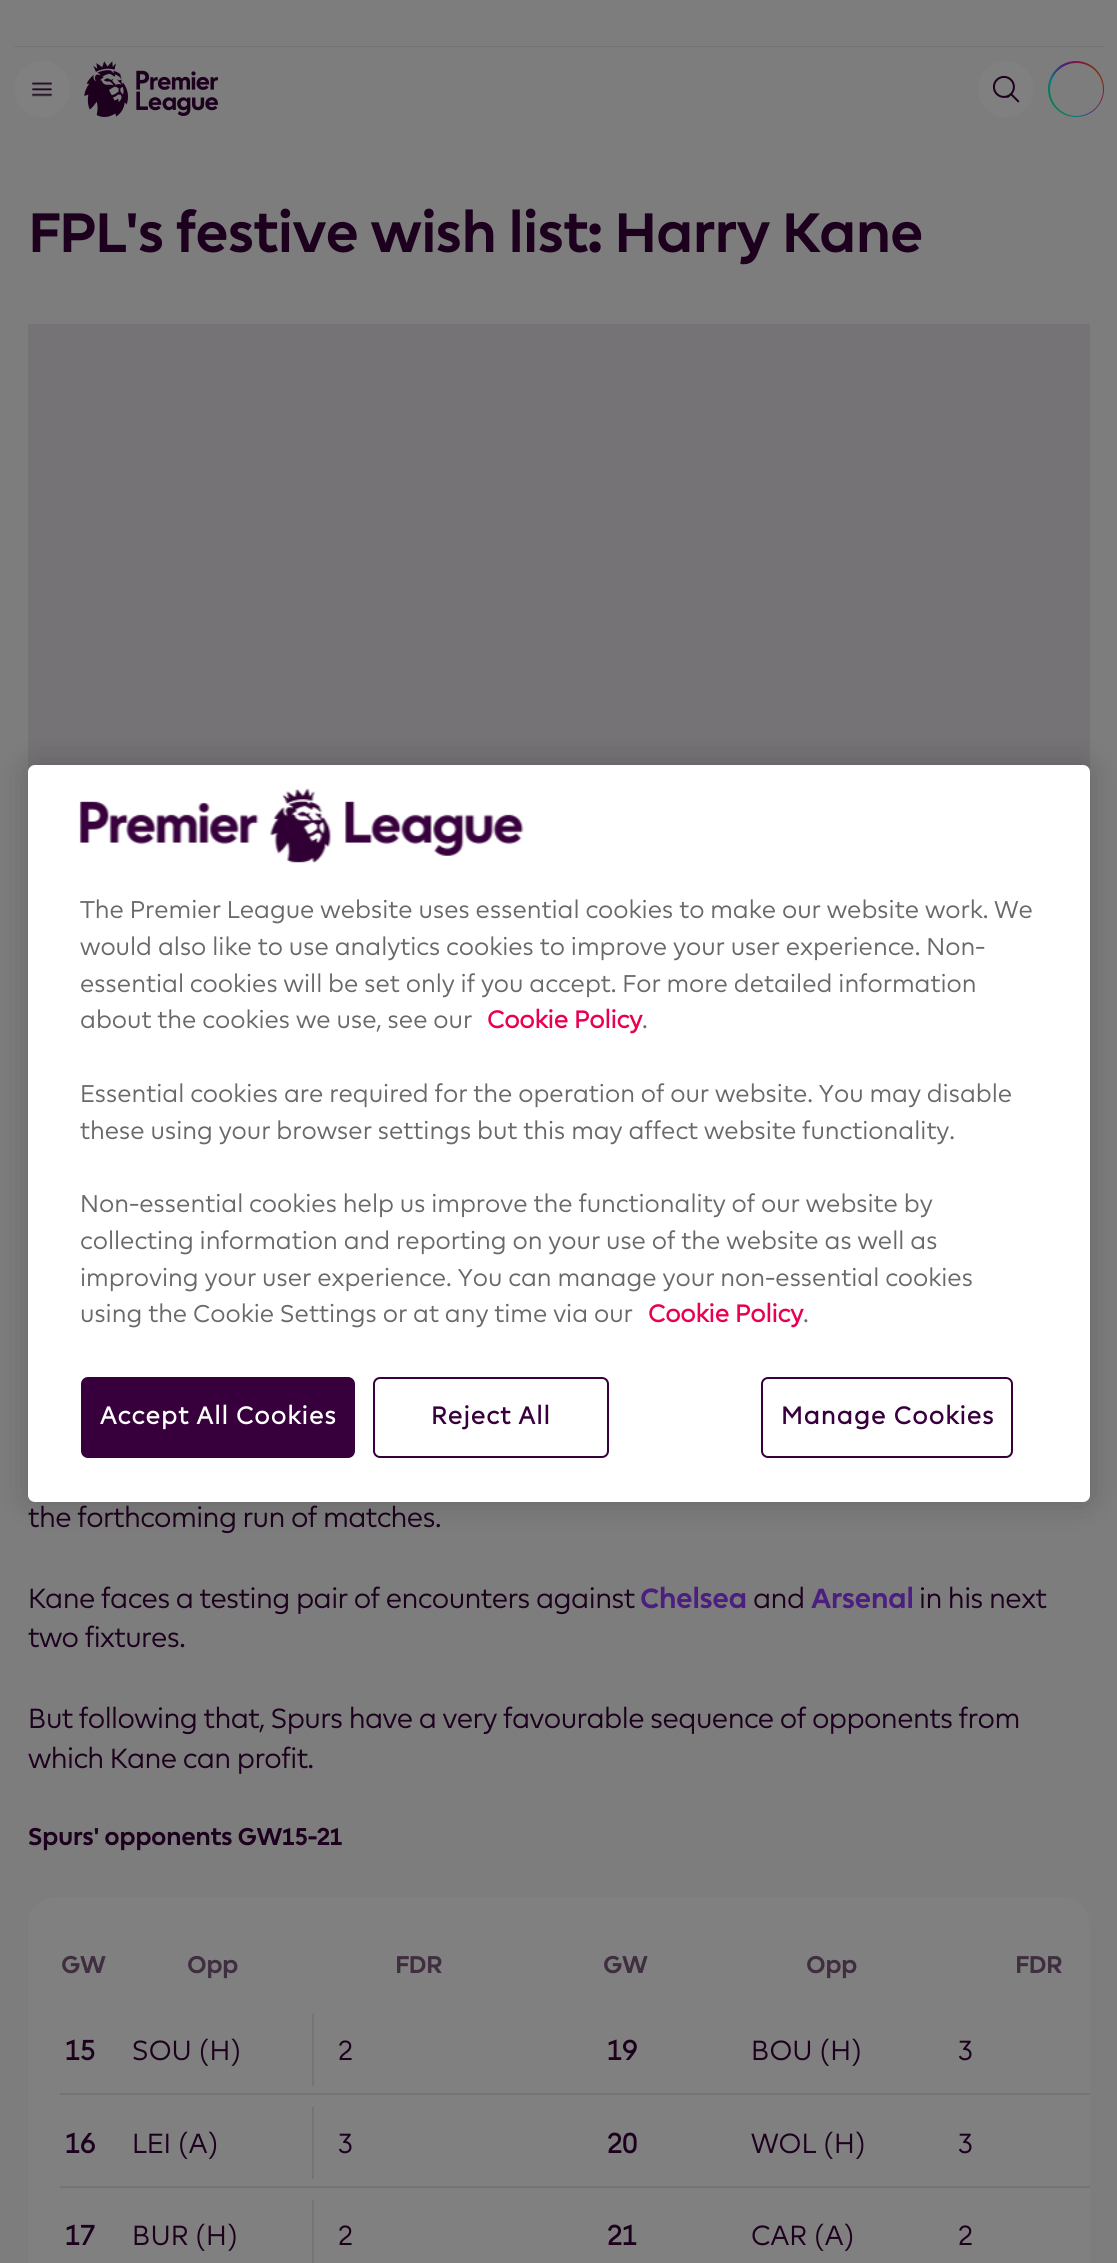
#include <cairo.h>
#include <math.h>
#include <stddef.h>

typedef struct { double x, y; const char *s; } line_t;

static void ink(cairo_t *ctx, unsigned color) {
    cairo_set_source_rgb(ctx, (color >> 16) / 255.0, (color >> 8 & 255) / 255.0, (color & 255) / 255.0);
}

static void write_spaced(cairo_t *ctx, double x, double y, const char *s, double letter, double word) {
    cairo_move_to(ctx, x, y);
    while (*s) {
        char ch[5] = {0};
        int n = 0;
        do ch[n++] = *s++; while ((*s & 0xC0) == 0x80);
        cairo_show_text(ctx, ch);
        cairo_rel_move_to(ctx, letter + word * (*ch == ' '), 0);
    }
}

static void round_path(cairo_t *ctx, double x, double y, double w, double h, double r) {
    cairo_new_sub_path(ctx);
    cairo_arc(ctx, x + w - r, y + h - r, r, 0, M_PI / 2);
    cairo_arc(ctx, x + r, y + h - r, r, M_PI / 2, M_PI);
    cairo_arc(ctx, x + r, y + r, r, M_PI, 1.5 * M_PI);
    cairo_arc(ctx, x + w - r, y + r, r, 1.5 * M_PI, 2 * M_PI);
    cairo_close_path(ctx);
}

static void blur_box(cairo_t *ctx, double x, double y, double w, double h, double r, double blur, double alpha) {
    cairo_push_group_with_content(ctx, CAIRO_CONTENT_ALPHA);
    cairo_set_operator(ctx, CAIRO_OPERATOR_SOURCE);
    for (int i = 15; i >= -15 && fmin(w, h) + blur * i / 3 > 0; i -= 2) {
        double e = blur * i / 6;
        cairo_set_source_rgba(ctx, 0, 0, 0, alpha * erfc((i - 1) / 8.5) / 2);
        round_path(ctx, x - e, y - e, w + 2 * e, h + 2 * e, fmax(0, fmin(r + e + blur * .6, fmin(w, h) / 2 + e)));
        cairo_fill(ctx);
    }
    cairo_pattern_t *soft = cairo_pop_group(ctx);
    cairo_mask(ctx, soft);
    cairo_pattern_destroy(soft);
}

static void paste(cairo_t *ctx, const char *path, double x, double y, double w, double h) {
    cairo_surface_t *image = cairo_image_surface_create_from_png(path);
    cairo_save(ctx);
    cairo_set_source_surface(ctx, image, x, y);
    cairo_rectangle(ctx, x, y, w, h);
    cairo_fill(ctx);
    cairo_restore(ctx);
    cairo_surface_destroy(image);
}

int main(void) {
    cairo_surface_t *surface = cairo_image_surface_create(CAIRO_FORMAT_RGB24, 1117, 2263);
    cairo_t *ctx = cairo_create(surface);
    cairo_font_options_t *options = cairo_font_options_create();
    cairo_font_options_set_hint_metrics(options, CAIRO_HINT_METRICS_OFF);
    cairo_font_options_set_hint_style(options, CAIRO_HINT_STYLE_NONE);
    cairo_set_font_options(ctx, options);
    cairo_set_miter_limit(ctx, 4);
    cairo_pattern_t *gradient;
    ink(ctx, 0x7D7D7D);
    cairo_paint(ctx);
    ink(ctx, 0x767376);
    cairo_rectangle(ctx, 14, 46, 1090, 1);
    cairo_fill(ctx);
    ink(ctx, 0x808080);
    cairo_arc(ctx, 42, 89, 28, 0, 2 * M_PI);
    cairo_fill(ctx);
    paste(ctx, "media/1.png", 32, 82, 20, 15);
    paste(ctx, "media/2.png", 84, 61, 134, 56);
    cairo_arc(ctx, 1006, 89, 28, 0, 2 * M_PI);
    cairo_fill(ctx);
    paste(ctx, "media/3.png", 992, 75, 28, 28);
    gradient = cairo_pattern_create_linear(1044, 110, 1109, 68);
    cairo_pattern_add_color_stop_rgba(gradient, 0.03, 0.463, 0.502, 0, 1);
    cairo_pattern_add_color_stop_rgba(gradient, 0.12, 0, 0.502, 0.267, 1);
    cairo_pattern_add_color_stop_rgba(gradient, 0.29, 0.012, 0.471, 0.502, 1);
    cairo_pattern_add_color_stop_rgba(gradient, 0.51, 0.294, 0.118, 0.502, 1);
    cairo_pattern_add_color_stop_rgba(gradient, 0.71, 0.502, 0.078, 0.255, 1);
    cairo_pattern_add_color_stop_rgba(gradient, 0.89, 0.502, 0.208, 0, 1);
    cairo_set_source(ctx, gradient);
    cairo_pattern_destroy(gradient);
    cairo_arc(ctx, 1076, 89, 28, 0, 2 * M_PI);
    cairo_fill(ctx);
    ink(ctx, 0x7D7D7D);
    cairo_arc(ctx, 1076.5, 89.5, 26.5, 0, 2 * M_PI);
    cairo_fill(ctx);
    cairo_select_font_face(ctx, "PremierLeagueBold", CAIRO_FONT_SLANT_NORMAL, CAIRO_FONT_WEIGHT_BOLD);
    cairo_set_font_size(ctx, 56);
    ink(ctx, 0x1C001E);
    write_spaced(ctx, 28, 252, "FPL's festive wish list: Harry Kane", -1.1, 0);
    ink(ctx, 0x767376);
    cairo_rectangle(ctx, 28, 324, 1062, 448);
    cairo_fill(ctx);
    cairo_select_font_face(ctx, "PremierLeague", CAIRO_FONT_SLANT_NORMAL, CAIRO_FONT_WEIGHT_NORMAL);
    cairo_set_font_size(ctx, 28);
    ink(ctx, 0x1C001E);
    write_spaced(ctx, 28, 1527, "the forthcoming run of matches.", -0.55, 0);
    write_spaced(ctx, 28, 1608, "Kane faces a testing pair of encounters against", -0.55, 0);
    cairo_select_font_face(ctx, "PremierLeagueBold", CAIRO_FONT_SLANT_NORMAL, CAIRO_FONT_WEIGHT_BOLD);
    ink(ctx, 0x4B1E80);
    write_spaced(ctx, 640, 1608, "Chelsea", -0.55, 0);
    cairo_select_font_face(ctx, "PremierLeague", CAIRO_FONT_SLANT_NORMAL, CAIRO_FONT_WEIGHT_NORMAL);
    ink(ctx, 0x1C001E);
    write_spaced(ctx, 753, 1608, "and", -0.55, 0);
    cairo_select_font_face(ctx, "PremierLeagueBold", CAIRO_FONT_SLANT_NORMAL, CAIRO_FONT_WEIGHT_BOLD);
    ink(ctx, 0x4B1E80);
    write_spaced(ctx, 811, 1608, "Arsenal", -0.55, 0);
    cairo_select_font_face(ctx, "PremierLeague", CAIRO_FONT_SLANT_NORMAL, CAIRO_FONT_WEIGHT_NORMAL);
    ink(ctx, 0x1C001E);
    {
        static const line_t items[] = {
            {919, 1608, "in his next"},
            {28, 1647, "two fixtures."},
            {28, 1728, "But following that, Spurs have a very favourable sequence of opponents from"},
            {28, 1768, "which Kane can profit."},
        };
        for (size_t i = 0; i < sizeof items / sizeof *items; i++) {
            write_spaced(ctx, items[i].x, items[i].y, items[i].s, -0.55, 0);
        }
    }
    cairo_select_font_face(ctx, "PremierLeagueBold", CAIRO_FONT_SLANT_NORMAL, CAIRO_FONT_WEIGHT_BOLD);
    cairo_set_font_size(ctx, 24.5);
    write_spaced(ctx, 28, 1845, "Spurs' opponents GW15-21", -0.5, 0);
    ink(ctx, 0x808080);
    round_path(ctx, 28, 1897, 1062, 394, 28);
    cairo_fill(ctx);
    ink(ctx, 0x3F2D40);
    {
        static const line_t items[] = {
            {61, 1973, "GW"},
            {187, 1973, "Opp"},
            {395, 1973, "FDR"},
            {603, 1973, "GW"},
            {806, 1973, "Opp"},
            {1015, 1973, "FDR"},
        };
        for (size_t i = 0; i < sizeof items / sizeof *items; i++) {
            write_spaced(ctx, items[i].x, items[i].y, items[i].s, -0.5, 0);
        }
    }
    ink(ctx, 0x767376);
    cairo_rectangle(ctx, 60, 2093, 1030, 2);
    cairo_fill(ctx);
    cairo_select_font_face(ctx, "PremierLeague", CAIRO_FONT_SLANT_NORMAL, CAIRO_FONT_WEIGHT_BOLD);
    cairo_set_font_size(ctx, 28);
    ink(ctx, 0x1C001E);
    cairo_move_to(ctx, 65, 2060);
    cairo_show_text(ctx, "15");
    cairo_select_font_face(ctx, "PremierLeague", CAIRO_FONT_SLANT_NORMAL, CAIRO_FONT_WEIGHT_NORMAL);
    cairo_move_to(ctx, 132, 2060);
    cairo_show_text(ctx, "SOU (H)");
    ink(ctx, 0x767376);
    cairo_rectangle(ctx, 312, 2014, 2, 72);
    cairo_fill(ctx);
    ink(ctx, 0x1C001E);
    cairo_move_to(ctx, 338, 2060);
    cairo_show_text(ctx, "2");
    cairo_select_font_face(ctx, "PremierLeague", CAIRO_FONT_SLANT_NORMAL, CAIRO_FONT_WEIGHT_BOLD);
    cairo_move_to(ctx, 607, 2060);
    cairo_show_text(ctx, "19");
    cairo_select_font_face(ctx, "PremierLeague", CAIRO_FONT_SLANT_NORMAL, CAIRO_FONT_WEIGHT_NORMAL);
    cairo_move_to(ctx, 751, 2060);
    cairo_show_text(ctx, "BOU (H)");
    cairo_move_to(ctx, 958, 2060);
    cairo_show_text(ctx, "3");
    ink(ctx, 0x767376);
    cairo_rectangle(ctx, 60, 2186, 1030, 2);
    cairo_fill(ctx);
    cairo_select_font_face(ctx, "PremierLeague", CAIRO_FONT_SLANT_NORMAL, CAIRO_FONT_WEIGHT_BOLD);
    ink(ctx, 0x1C001E);
    cairo_move_to(ctx, 65, 2153);
    cairo_show_text(ctx, "16");
    cairo_select_font_face(ctx, "PremierLeague", CAIRO_FONT_SLANT_NORMAL, CAIRO_FONT_WEIGHT_NORMAL);
    cairo_move_to(ctx, 132, 2153);
    cairo_show_text(ctx, "LEI (A)");
    ink(ctx, 0x767376);
    cairo_rectangle(ctx, 312, 2107, 2, 72);
    cairo_fill(ctx);
    ink(ctx, 0x1C001E);
    cairo_move_to(ctx, 338, 2153);
    cairo_show_text(ctx, "3");
    cairo_select_font_face(ctx, "PremierLeague", CAIRO_FONT_SLANT_NORMAL, CAIRO_FONT_WEIGHT_BOLD);
    cairo_move_to(ctx, 607, 2153);
    cairo_show_text(ctx, "20");
    cairo_select_font_face(ctx, "PremierLeague", CAIRO_FONT_SLANT_NORMAL, CAIRO_FONT_WEIGHT_NORMAL);
    cairo_move_to(ctx, 751, 2153);
    cairo_show_text(ctx, "WOL (H)");
    cairo_move_to(ctx, 958, 2153);
    cairo_show_text(ctx, "3");
    cairo_select_font_face(ctx, "PremierLeague", CAIRO_FONT_SLANT_NORMAL, CAIRO_FONT_WEIGHT_BOLD);
    cairo_move_to(ctx, 65, 2245);
    cairo_show_text(ctx, "17");
    cairo_select_font_face(ctx, "PremierLeague", CAIRO_FONT_SLANT_NORMAL, CAIRO_FONT_WEIGHT_NORMAL);
    cairo_move_to(ctx, 132, 2245);
    cairo_show_text(ctx, "BUR (H)");
    ink(ctx, 0x767376);
    cairo_rectangle(ctx, 312, 2200, 2, 63);
    cairo_fill(ctx);
    ink(ctx, 0x1C001E);
    cairo_move_to(ctx, 338, 2245);
    cairo_show_text(ctx, "2");
    cairo_select_font_face(ctx, "PremierLeague", CAIRO_FONT_SLANT_NORMAL, CAIRO_FONT_WEIGHT_BOLD);
    cairo_move_to(ctx, 607, 2245);
    cairo_show_text(ctx, "21");
    cairo_select_font_face(ctx, "PremierLeague", CAIRO_FONT_SLANT_NORMAL, CAIRO_FONT_WEIGHT_NORMAL);
    cairo_move_to(ctx, 751, 2245);
    cairo_show_text(ctx, "CAR (A)");
    cairo_move_to(ctx, 958, 2245);
    cairo_show_text(ctx, "2");
    ink(ctx, 0x000000);
    blur_box(ctx, 28, 765, 1062, 737, 7, 16, 0.2);
    ink(ctx, 0xFFFFFF);
    round_path(ctx, 28, 765, 1062, 737, 7);
    cairo_fill(ctx);
    paste(ctx, "media/4.png", 79, 788, 445, 75);
    cairo_set_font_size(ctx, 24.5);
    ink(ctx, 0x696969);
    {
        static const line_t items[] = {
            {80, 918, "The Premier League website uses essential cookies to make our website work. We"},
            {80, 955, "would also like to use analytics cookies to improve your user experience. Non-"},
            {80, 992, "essential cookies will be set only if you accept. For more detailed information"},
            {80, 1028, "about the cookies we use, see our"},
        };
        for (size_t i = 0; i < sizeof items / sizeof *items; i++) {
            cairo_move_to(ctx, items[i].x, items[i].y);
            cairo_show_text(ctx, items[i].s);
        }
    }
    cairo_select_font_face(ctx, "PremierLeague", CAIRO_FONT_SLANT_NORMAL, CAIRO_FONT_WEIGHT_BOLD);
    ink(ctx, 0xE90052);
    cairo_move_to(ctx, 487, 1028);
    cairo_show_text(ctx, "Cookie Policy");
    cairo_select_font_face(ctx, "PremierLeague", CAIRO_FONT_SLANT_NORMAL, CAIRO_FONT_WEIGHT_NORMAL);
    ink(ctx, 0x696969);
    {
        static const line_t items[] = {
            {642, 1028, "."},
            {80, 1102, "Essential cookies are required for the operation of our website. You may disable"},
            {80, 1139, "these using your browser settings but this may affect website functionality."},
            {80, 1212, "Non-essential cookies help us improve the functionality of our website by"},
            {80, 1249, "collecting information and reporting on your use of the website as well as"},
            {80, 1286, "improving your user experience. You can manage your non-essential cookies"},
            {80, 1322, "using the Cookie Settings or at any time via our"},
        };
        for (size_t i = 0; i < sizeof items / sizeof *items; i++) {
            cairo_move_to(ctx, items[i].x, items[i].y);
            cairo_show_text(ctx, items[i].s);
        }
    }
    cairo_select_font_face(ctx, "PremierLeague", CAIRO_FONT_SLANT_NORMAL, CAIRO_FONT_WEIGHT_BOLD);
    ink(ctx, 0xE90052);
    cairo_move_to(ctx, 648, 1322);
    cairo_show_text(ctx, "Cookie Policy");
    cairo_select_font_face(ctx, "PremierLeague", CAIRO_FONT_SLANT_NORMAL, CAIRO_FONT_WEIGHT_NORMAL);
    ink(ctx, 0x696969);
    cairo_move_to(ctx, 803, 1322);
    cairo_show_text(ctx, ".");
    ink(ctx, 0x37003C);
    round_path(ctx, 82, 1378, 272, 79, 6);
    cairo_fill_preserve(ctx);
    cairo_stroke(ctx);
    cairo_select_font_face(ctx, "PremierLeague", CAIRO_FONT_SLANT_NORMAL, CAIRO_FONT_WEIGHT_BOLD);
    ink(ctx, 0xFFFFFF);
    write_spaced(ctx, 100, 1424, "Accept All Cookies", 1.25, 0);
    round_path(ctx, 374, 1378, 234, 79, 6);
    ink(ctx, 0x37003C);
    cairo_stroke(ctx);
    write_spaced(ctx, 431, 1424, "Reject All", 1.25, 0);
    round_path(ctx, 762, 1378, 250, 79, 6);
    cairo_stroke(ctx);
    write_spaced(ctx, 781, 1424, "Manage Cookies", 1.25, 0);
    cairo_surface_write_to_png(surface, "image.png");
    cairo_font_options_destroy(options);
    cairo_destroy(ctx);
    cairo_surface_destroy(surface);
    return 0;
}
